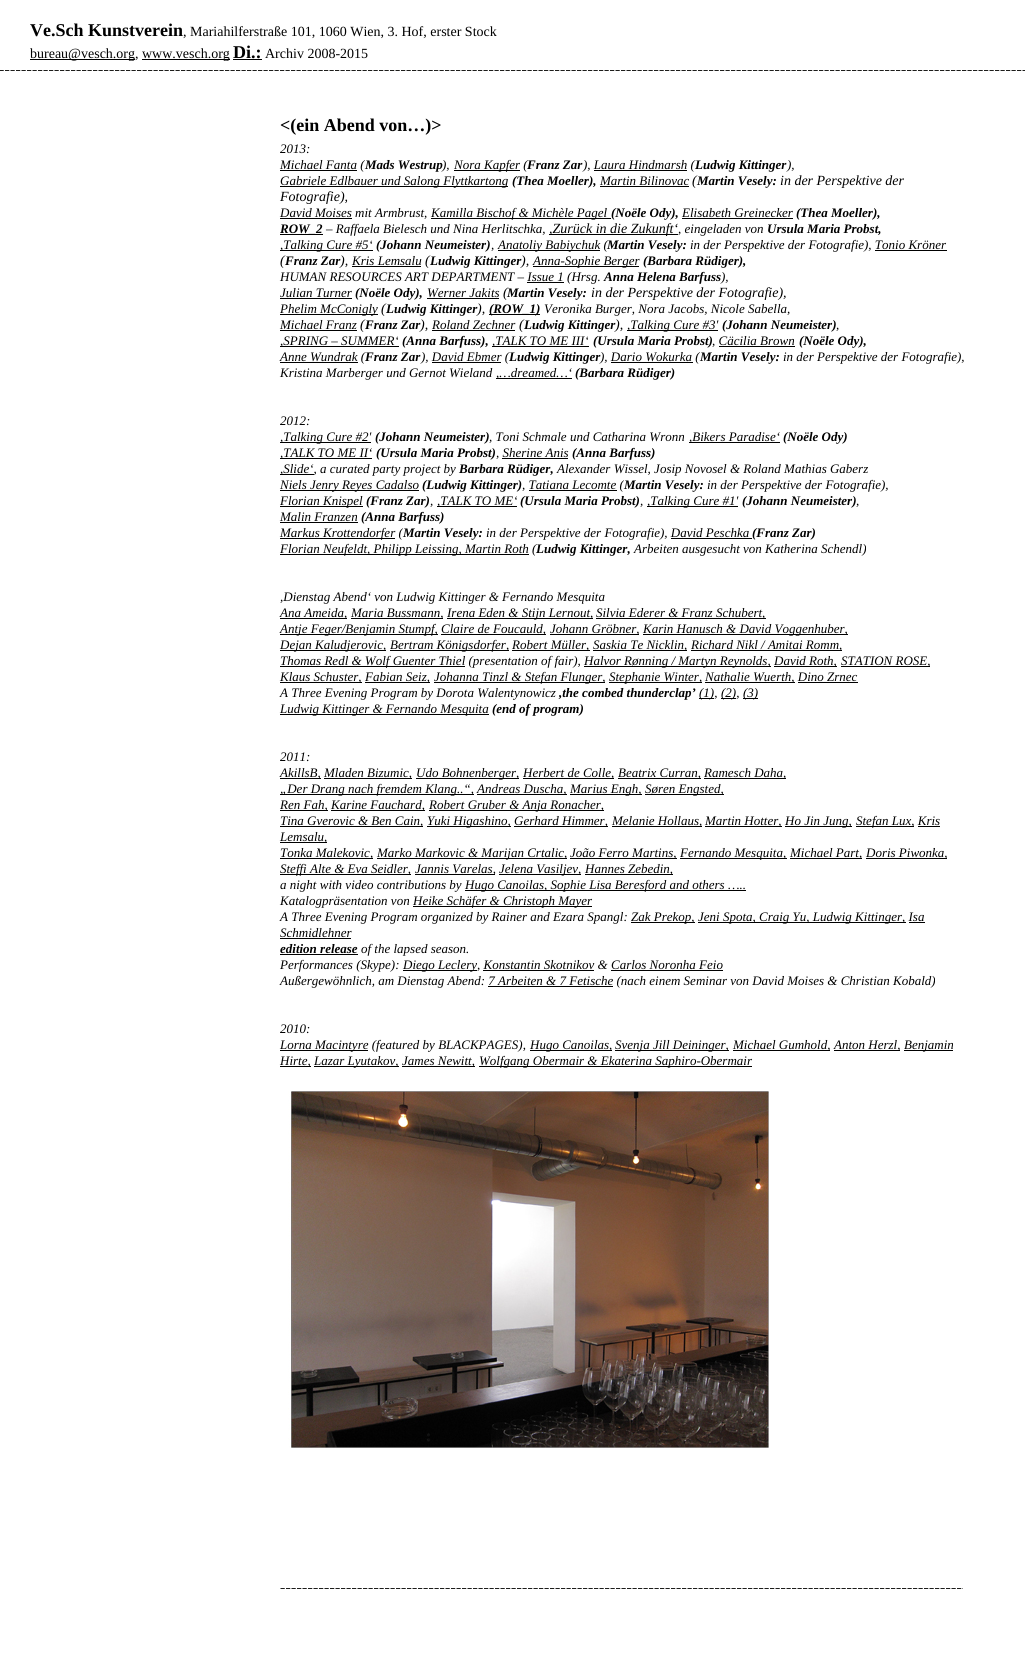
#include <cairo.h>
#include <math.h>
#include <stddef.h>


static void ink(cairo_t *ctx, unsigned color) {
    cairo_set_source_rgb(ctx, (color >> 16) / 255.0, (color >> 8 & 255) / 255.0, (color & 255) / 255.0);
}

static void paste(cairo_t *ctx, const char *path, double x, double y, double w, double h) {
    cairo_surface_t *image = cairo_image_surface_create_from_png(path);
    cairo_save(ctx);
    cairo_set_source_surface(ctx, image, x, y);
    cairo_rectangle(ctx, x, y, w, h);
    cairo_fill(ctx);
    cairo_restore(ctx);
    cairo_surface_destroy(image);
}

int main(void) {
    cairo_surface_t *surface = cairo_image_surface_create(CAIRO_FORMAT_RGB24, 1025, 1676);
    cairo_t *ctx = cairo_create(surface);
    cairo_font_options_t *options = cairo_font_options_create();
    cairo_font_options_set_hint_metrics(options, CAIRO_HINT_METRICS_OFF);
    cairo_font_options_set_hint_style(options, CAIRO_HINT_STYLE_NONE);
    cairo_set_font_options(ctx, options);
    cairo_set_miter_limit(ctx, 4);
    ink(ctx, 0xFFFFFF);
    cairo_paint(ctx);
    paste(ctx, "media/1.png", 0, 70, 1025, 1);
    cairo_select_font_face(ctx, "Liberation Serif", CAIRO_FONT_SLANT_NORMAL, CAIRO_FONT_WEIGHT_BOLD);
    cairo_set_font_size(ctx, 18);
    ink(ctx, 0x000000);
    cairo_move_to(ctx, 30, 36);
    cairo_show_text(ctx, "Ve.Sch Kunstverein");
    cairo_select_font_face(ctx, "Liberation Serif", CAIRO_FONT_SLANT_NORMAL, CAIRO_FONT_WEIGHT_NORMAL);
    cairo_set_font_size(ctx, 14);
    cairo_move_to(ctx, 183, 36);
    cairo_show_text(ctx, ", Mariahilferstraße 101, 1060 Wien, 3. Hof, erster Stock");
    cairo_rectangle(ctx, 30, 59, 105, 1);
    cairo_fill(ctx);
    cairo_move_to(ctx, 30, 58);
    cairo_show_text(ctx, "bureau@vesch.org,");
    cairo_rectangle(ctx, 142, 59, 88, 1);
    cairo_fill(ctx);
    cairo_move_to(ctx, 142, 58);
    cairo_show_text(ctx, "www.vesch.org");
    cairo_select_font_face(ctx, "Liberation Serif", CAIRO_FONT_SLANT_NORMAL, CAIRO_FONT_WEIGHT_BOLD);
    cairo_set_font_size(ctx, 18);
    cairo_move_to(ctx, 233, 58);
    cairo_show_text(ctx, "Di.:");
    cairo_rectangle(ctx, 233, 59, 29, 1);
    cairo_fill(ctx);
    cairo_select_font_face(ctx, "Liberation Serif", CAIRO_FONT_SLANT_NORMAL, CAIRO_FONT_WEIGHT_NORMAL);
    cairo_set_font_size(ctx, 14);
    cairo_move_to(ctx, 265, 58);
    cairo_show_text(ctx, "Archiv 2008-2015");
    paste(ctx, "media/2.png", 280, 1588, 683, 1);
    cairo_select_font_face(ctx, "Liberation Serif", CAIRO_FONT_SLANT_NORMAL, CAIRO_FONT_WEIGHT_BOLD);
    cairo_set_font_size(ctx, 18);
    cairo_move_to(ctx, 280, 131);
    cairo_show_text(ctx, "<(ein Abend von…)>");
    cairo_select_font_face(ctx, "Liberation Serif", CAIRO_FONT_SLANT_ITALIC, CAIRO_FONT_WEIGHT_NORMAL);
    cairo_set_font_size(ctx, 13);
    cairo_move_to(ctx, 280, 153);
    cairo_show_text(ctx, "2013:");
    cairo_rectangle(ctx, 280, 170, 77, 1);
    cairo_fill(ctx);
    cairo_move_to(ctx, 280, 169);
    cairo_show_text(ctx, "Michael Fanta (");
    cairo_select_font_face(ctx, "Liberation Serif", CAIRO_FONT_SLANT_ITALIC, CAIRO_FONT_WEIGHT_BOLD);
    cairo_move_to(ctx, 365, 169);
    cairo_show_text(ctx, "Mads Westrup");
    cairo_select_font_face(ctx, "Liberation Serif", CAIRO_FONT_SLANT_ITALIC, CAIRO_FONT_WEIGHT_NORMAL);
    cairo_move_to(ctx, 442, 169);
    cairo_show_text(ctx, "),");
    cairo_rectangle(ctx, 454, 170, 66, 1);
    cairo_fill(ctx);
    cairo_move_to(ctx, 454, 169);
    cairo_show_text(ctx, "Nora Kapfer (");
    cairo_select_font_face(ctx, "Liberation Serif", CAIRO_FONT_SLANT_ITALIC, CAIRO_FONT_WEIGHT_BOLD);
    cairo_move_to(ctx, 527, 169);
    cairo_show_text(ctx, "Franz Zar");
    cairo_select_font_face(ctx, "Liberation Serif", CAIRO_FONT_SLANT_ITALIC, CAIRO_FONT_WEIGHT_NORMAL);
    cairo_move_to(ctx, 583, 169);
    cairo_show_text(ctx, "), Laura Hindmarsh (");
    cairo_select_font_face(ctx, "Liberation Serif", CAIRO_FONT_SLANT_ITALIC, CAIRO_FONT_WEIGHT_BOLD);
    cairo_move_to(ctx, 695, 169);
    cairo_show_text(ctx, "Ludwig Kittinger");
    cairo_select_font_face(ctx, "Liberation Serif", CAIRO_FONT_SLANT_ITALIC, CAIRO_FONT_WEIGHT_NORMAL);
    cairo_move_to(ctx, 787, 169);
    cairo_show_text(ctx, "),");
    cairo_rectangle(ctx, 594, 170, 93, 1);
    cairo_fill(ctx);
    cairo_rectangle(ctx, 280, 186, 228, 1);
    cairo_fill(ctx);
    cairo_move_to(ctx, 280, 185);
    cairo_show_text(ctx, "Gabriele Edlbauer und Salong Flyttkartong");
    cairo_select_font_face(ctx, "Liberation Serif", CAIRO_FONT_SLANT_ITALIC, CAIRO_FONT_WEIGHT_BOLD);
    cairo_move_to(ctx, 512, 185);
    cairo_show_text(ctx, "(Thea Moeller),");
    cairo_select_font_face(ctx, "Liberation Serif", CAIRO_FONT_SLANT_ITALIC, CAIRO_FONT_WEIGHT_NORMAL);
    cairo_move_to(ctx, 600, 185);
    cairo_show_text(ctx, "Martin Bilinovac");
    cairo_rectangle(ctx, 600, 186, 89, 1);
    cairo_fill(ctx);
    cairo_set_font_size(ctx, 14);
    cairo_move_to(ctx, 692, 185);
    cairo_show_text(ctx, "(");
    cairo_select_font_face(ctx, "Liberation Serif", CAIRO_FONT_SLANT_ITALIC, CAIRO_FONT_WEIGHT_BOLD);
    cairo_set_font_size(ctx, 13);
    cairo_move_to(ctx, 697, 185);
    cairo_show_text(ctx, "Martin Vesely:");
    cairo_select_font_face(ctx, "Liberation Serif", CAIRO_FONT_SLANT_ITALIC, CAIRO_FONT_WEIGHT_NORMAL);
    cairo_set_font_size(ctx, 14);
    cairo_move_to(ctx, 780, 185);
    cairo_show_text(ctx, "in der Perspektive der");
    cairo_move_to(ctx, 280, 201);
    cairo_show_text(ctx, "Fotografie),");
    cairo_rectangle(ctx, 280, 218, 72, 1);
    cairo_fill(ctx);
    cairo_set_font_size(ctx, 13);
    cairo_move_to(ctx, 280, 217);
    cairo_show_text(ctx, "David Moises mit Armbrust,");
    cairo_rectangle(ctx, 431, 218, 180, 1);
    cairo_fill(ctx);
    cairo_move_to(ctx, 431, 217);
    cairo_show_text(ctx, "Kamilla Bischof & Michèle Pagel");
    cairo_select_font_face(ctx, "Liberation Serif", CAIRO_FONT_SLANT_ITALIC, CAIRO_FONT_WEIGHT_BOLD);
    cairo_move_to(ctx, 611, 217);
    cairo_show_text(ctx, "(Noële Ody),");
    cairo_select_font_face(ctx, "Liberation Serif", CAIRO_FONT_SLANT_ITALIC, CAIRO_FONT_WEIGHT_NORMAL);
    cairo_move_to(ctx, 682, 217);
    cairo_show_text(ctx, "Elisabeth Greinecker");
    cairo_rectangle(ctx, 682, 218, 111, 1);
    cairo_fill(ctx);
    cairo_select_font_face(ctx, "Liberation Serif", CAIRO_FONT_SLANT_ITALIC, CAIRO_FONT_WEIGHT_BOLD);
    cairo_move_to(ctx, 796, 217);
    cairo_show_text(ctx, "(Thea Moeller),");
    cairo_rectangle(ctx, 280, 234, 43, 1);
    cairo_fill(ctx);
    cairo_move_to(ctx, 280, 233);
    cairo_show_text(ctx, "ROW_2");
    cairo_select_font_face(ctx, "Liberation Serif", CAIRO_FONT_SLANT_ITALIC, CAIRO_FONT_WEIGHT_NORMAL);
    cairo_move_to(ctx, 326, 233);
    cairo_show_text(ctx, "– Raffaela Bielesch und Nina Herlitschka,");
    cairo_rectangle(ctx, 549, 234, 129, 1);
    cairo_fill(ctx);
    cairo_set_font_size(ctx, 14);
    cairo_move_to(ctx, 549, 233);
    cairo_show_text(ctx, ",Zurück in die Zukunft‘");
    cairo_set_font_size(ctx, 13);
    cairo_move_to(ctx, 678, 233);
    cairo_show_text(ctx, ", eingeladen von");
    cairo_select_font_face(ctx, "Liberation Serif", CAIRO_FONT_SLANT_ITALIC, CAIRO_FONT_WEIGHT_BOLD);
    cairo_move_to(ctx, 767, 233);
    cairo_show_text(ctx, "Ursula Maria Probst,");
    cairo_rectangle(ctx, 280, 250, 93, 1);
    cairo_fill(ctx);
    cairo_select_font_face(ctx, "Liberation Serif", CAIRO_FONT_SLANT_ITALIC, CAIRO_FONT_WEIGHT_NORMAL);
    cairo_move_to(ctx, 280, 249);
    cairo_show_text(ctx, ",Talking Cure #5‘");
    cairo_select_font_face(ctx, "Liberation Serif", CAIRO_FONT_SLANT_ITALIC, CAIRO_FONT_WEIGHT_BOLD);
    cairo_move_to(ctx, 376, 249);
    cairo_show_text(ctx, "(Johann Neumeister)");
    cairo_select_font_face(ctx, "Liberation Serif", CAIRO_FONT_SLANT_ITALIC, CAIRO_FONT_WEIGHT_NORMAL);
    cairo_move_to(ctx, 491, 249);
    cairo_show_text(ctx, ",");
    cairo_rectangle(ctx, 498, 250, 102, 1);
    cairo_fill(ctx);
    cairo_move_to(ctx, 498, 249);
    cairo_show_text(ctx, "Anatoliy Babiychuk (");
    cairo_select_font_face(ctx, "Liberation Serif", CAIRO_FONT_SLANT_ITALIC, CAIRO_FONT_WEIGHT_BOLD);
    cairo_move_to(ctx, 607, 249);
    cairo_show_text(ctx, "Martin Vesely:");
    cairo_select_font_face(ctx, "Liberation Serif", CAIRO_FONT_SLANT_ITALIC, CAIRO_FONT_WEIGHT_NORMAL);
    cairo_move_to(ctx, 690, 249);
    cairo_show_text(ctx, "in der Perspektive der Fotografie), Tonio Kröner");
    cairo_set_font_size(ctx, 14);
    cairo_move_to(ctx, 280, 265);
    cairo_show_text(ctx, "(");
    cairo_select_font_face(ctx, "Liberation Serif", CAIRO_FONT_SLANT_ITALIC, CAIRO_FONT_WEIGHT_BOLD);
    cairo_set_font_size(ctx, 13);
    cairo_move_to(ctx, 285, 265);
    cairo_show_text(ctx, "Franz Zar");
    cairo_select_font_face(ctx, "Liberation Serif", CAIRO_FONT_SLANT_ITALIC, CAIRO_FONT_WEIGHT_NORMAL);
    cairo_set_font_size(ctx, 14);
    cairo_move_to(ctx, 340, 265);
    cairo_show_text(ctx, "),");
    cairo_rectangle(ctx, 875, 250, 72, 1);
    cairo_fill(ctx);
    cairo_set_font_size(ctx, 13);
    cairo_move_to(ctx, 352, 265);
    cairo_show_text(ctx, "Kris Lemsalu");
    cairo_rectangle(ctx, 352, 266, 69, 1);
    cairo_fill(ctx);
    cairo_set_font_size(ctx, 14);
    cairo_move_to(ctx, 425, 265);
    cairo_show_text(ctx, "(");
    cairo_select_font_face(ctx, "Liberation Serif", CAIRO_FONT_SLANT_ITALIC, CAIRO_FONT_WEIGHT_BOLD);
    cairo_set_font_size(ctx, 13);
    cairo_move_to(ctx, 430, 265);
    cairo_show_text(ctx, "Ludwig Kittinger");
    cairo_select_font_face(ctx, "Liberation Serif", CAIRO_FONT_SLANT_ITALIC, CAIRO_FONT_WEIGHT_NORMAL);
    cairo_set_font_size(ctx, 14);
    cairo_move_to(ctx, 521, 265);
    cairo_show_text(ctx, "),");
    cairo_rectangle(ctx, 533, 266, 106, 1);
    cairo_fill(ctx);
    cairo_set_font_size(ctx, 13);
    cairo_move_to(ctx, 533, 265);
    cairo_show_text(ctx, "Anna-Sophie Berger");
    cairo_select_font_face(ctx, "Liberation Serif", CAIRO_FONT_SLANT_ITALIC, CAIRO_FONT_WEIGHT_BOLD);
    cairo_move_to(ctx, 643, 265);
    cairo_show_text(ctx, "(Barbara Rüdiger),");
    cairo_select_font_face(ctx, "Liberation Serif", CAIRO_FONT_SLANT_ITALIC, CAIRO_FONT_WEIGHT_NORMAL);
    cairo_move_to(ctx, 280, 281);
    cairo_show_text(ctx, "HUMAN RESOURCES ART DEPARTMENT – Issue 1 (Hrsg.");
    cairo_rectangle(ctx, 527, 282, 37, 1);
    cairo_fill(ctx);
    cairo_select_font_face(ctx, "Liberation Serif", CAIRO_FONT_SLANT_ITALIC, CAIRO_FONT_WEIGHT_BOLD);
    cairo_move_to(ctx, 604, 281);
    cairo_show_text(ctx, "Anna Helena Barfuss");
    cairo_select_font_face(ctx, "Liberation Serif", CAIRO_FONT_SLANT_ITALIC, CAIRO_FONT_WEIGHT_NORMAL);
    cairo_move_to(ctx, 721, 281);
    cairo_show_text(ctx, "),");
    cairo_move_to(ctx, 280, 297);
    cairo_show_text(ctx, "Julian Turner");
    cairo_rectangle(ctx, 280, 298, 72, 1);
    cairo_fill(ctx);
    cairo_select_font_face(ctx, "Liberation Serif", CAIRO_FONT_SLANT_ITALIC, CAIRO_FONT_WEIGHT_BOLD);
    cairo_move_to(ctx, 355, 297);
    cairo_show_text(ctx, "(Noële Ody),");
    cairo_select_font_face(ctx, "Liberation Serif", CAIRO_FONT_SLANT_ITALIC, CAIRO_FONT_WEIGHT_NORMAL);
    cairo_move_to(ctx, 427, 297);
    cairo_show_text(ctx, "Werner Jakits");
    cairo_rectangle(ctx, 427, 298, 72, 1);
    cairo_fill(ctx);
    cairo_set_font_size(ctx, 14);
    cairo_move_to(ctx, 503, 297);
    cairo_show_text(ctx, "(");
    cairo_select_font_face(ctx, "Liberation Serif", CAIRO_FONT_SLANT_ITALIC, CAIRO_FONT_WEIGHT_BOLD);
    cairo_set_font_size(ctx, 13);
    cairo_move_to(ctx, 507, 297);
    cairo_show_text(ctx, "Martin Vesely:");
    cairo_select_font_face(ctx, "Liberation Serif", CAIRO_FONT_SLANT_ITALIC, CAIRO_FONT_WEIGHT_NORMAL);
    cairo_set_font_size(ctx, 14);
    cairo_move_to(ctx, 591, 297);
    cairo_show_text(ctx, "in der Perspektive der Fotografie),");
    cairo_rectangle(ctx, 280, 314, 98, 1);
    cairo_fill(ctx);
    cairo_set_font_size(ctx, 13);
    cairo_move_to(ctx, 280, 313);
    cairo_show_text(ctx, "Phelim McConigly");
    cairo_set_font_size(ctx, 14);
    cairo_move_to(ctx, 381, 313);
    cairo_show_text(ctx, "(");
    cairo_select_font_face(ctx, "Liberation Serif", CAIRO_FONT_SLANT_ITALIC, CAIRO_FONT_WEIGHT_BOLD);
    cairo_set_font_size(ctx, 13);
    cairo_move_to(ctx, 386, 313);
    cairo_show_text(ctx, "Ludwig Kittinger");
    cairo_select_font_face(ctx, "Liberation Serif", CAIRO_FONT_SLANT_ITALIC, CAIRO_FONT_WEIGHT_NORMAL);
    cairo_set_font_size(ctx, 14);
    cairo_move_to(ctx, 477, 313);
    cairo_show_text(ctx, "),");
    cairo_rectangle(ctx, 489, 314, 51, 1);
    cairo_fill(ctx);
    cairo_select_font_face(ctx, "Liberation Serif", CAIRO_FONT_SLANT_ITALIC, CAIRO_FONT_WEIGHT_BOLD);
    cairo_set_font_size(ctx, 13);
    cairo_move_to(ctx, 489, 313);
    cairo_show_text(ctx, "(ROW_1)");
    cairo_select_font_face(ctx, "Liberation Serif", CAIRO_FONT_SLANT_ITALIC, CAIRO_FONT_WEIGHT_NORMAL);
    cairo_move_to(ctx, 544, 313);
    cairo_show_text(ctx, "Veronika Burger, Nora Jacobs, Nicole Sabella,");
    cairo_move_to(ctx, 280, 329);
    cairo_show_text(ctx, "Michael Franz");
    cairo_rectangle(ctx, 280, 330, 77, 1);
    cairo_fill(ctx);
    cairo_set_font_size(ctx, 14);
    cairo_move_to(ctx, 360, 329);
    cairo_show_text(ctx, "(");
    cairo_select_font_face(ctx, "Liberation Serif", CAIRO_FONT_SLANT_ITALIC, CAIRO_FONT_WEIGHT_BOLD);
    cairo_set_font_size(ctx, 13);
    cairo_move_to(ctx, 365, 329);
    cairo_show_text(ctx, "Franz Zar");
    cairo_select_font_face(ctx, "Liberation Serif", CAIRO_FONT_SLANT_ITALIC, CAIRO_FONT_WEIGHT_NORMAL);
    cairo_set_font_size(ctx, 14);
    cairo_move_to(ctx, 420, 329);
    cairo_show_text(ctx, "),");
    cairo_set_font_size(ctx, 13);
    cairo_move_to(ctx, 432, 329);
    cairo_show_text(ctx, "Roland Zechner");
    cairo_rectangle(ctx, 432, 330, 83, 1);
    cairo_fill(ctx);
    cairo_set_font_size(ctx, 14);
    cairo_move_to(ctx, 519, 329);
    cairo_show_text(ctx, "(");
    cairo_select_font_face(ctx, "Liberation Serif", CAIRO_FONT_SLANT_ITALIC, CAIRO_FONT_WEIGHT_BOLD);
    cairo_set_font_size(ctx, 13);
    cairo_move_to(ctx, 524, 329);
    cairo_show_text(ctx, "Ludwig Kittinger");
    cairo_select_font_face(ctx, "Liberation Serif", CAIRO_FONT_SLANT_ITALIC, CAIRO_FONT_WEIGHT_NORMAL);
    cairo_set_font_size(ctx, 14);
    cairo_move_to(ctx, 615, 329);
    cairo_show_text(ctx, "),");
    cairo_rectangle(ctx, 627, 330, 91, 1);
    cairo_fill(ctx);
    cairo_set_font_size(ctx, 13);
    cairo_move_to(ctx, 627, 329);
    cairo_show_text(ctx, ",Talking Cure #3′");
    cairo_select_font_face(ctx, "Liberation Serif", CAIRO_FONT_SLANT_ITALIC, CAIRO_FONT_WEIGHT_BOLD);
    cairo_move_to(ctx, 722, 329);
    cairo_show_text(ctx, "(Johann Neumeister)");
    cairo_select_font_face(ctx, "Liberation Serif", CAIRO_FONT_SLANT_ITALIC, CAIRO_FONT_WEIGHT_NORMAL);
    cairo_move_to(ctx, 836, 329);
    cairo_show_text(ctx, ",");
    cairo_rectangle(ctx, 280, 346, 119, 1);
    cairo_fill(ctx);
    cairo_move_to(ctx, 280, 345);
    cairo_show_text(ctx, ",SPRING – SUMMER‘");
    cairo_select_font_face(ctx, "Liberation Serif", CAIRO_FONT_SLANT_ITALIC, CAIRO_FONT_WEIGHT_BOLD);
    cairo_move_to(ctx, 402, 345);
    cairo_show_text(ctx, "(Anna Barfuss),");
    cairo_rectangle(ctx, 492, 346, 97, 1);
    cairo_fill(ctx);
    cairo_select_font_face(ctx, "Liberation Serif", CAIRO_FONT_SLANT_ITALIC, CAIRO_FONT_WEIGHT_NORMAL);
    cairo_move_to(ctx, 492, 345);
    cairo_show_text(ctx, ",TALK TO ME III‘");
    cairo_select_font_face(ctx, "Liberation Serif", CAIRO_FONT_SLANT_ITALIC, CAIRO_FONT_WEIGHT_BOLD);
    cairo_move_to(ctx, 593, 345);
    cairo_show_text(ctx, "(Ursula Maria Probst)");
    cairo_select_font_face(ctx, "Liberation Serif", CAIRO_FONT_SLANT_ITALIC, CAIRO_FONT_WEIGHT_NORMAL);
    cairo_move_to(ctx, 712, 345);
    cairo_show_text(ctx, ", Cäcilia Brown");
    cairo_select_font_face(ctx, "Liberation Serif", CAIRO_FONT_SLANT_ITALIC, CAIRO_FONT_WEIGHT_BOLD);
    cairo_move_to(ctx, 799, 345);
    cairo_show_text(ctx, "(Noële Ody),");
    cairo_rectangle(ctx, 719, 346, 76, 1);
    cairo_fill(ctx);
    cairo_rectangle(ctx, 280, 362, 78, 1);
    cairo_fill(ctx);
    cairo_select_font_face(ctx, "Liberation Serif", CAIRO_FONT_SLANT_ITALIC, CAIRO_FONT_WEIGHT_NORMAL);
    cairo_move_to(ctx, 280, 361);
    cairo_show_text(ctx, "Anne Wundrak (");
    cairo_select_font_face(ctx, "Liberation Serif", CAIRO_FONT_SLANT_ITALIC, CAIRO_FONT_WEIGHT_BOLD);
    cairo_move_to(ctx, 365, 361);
    cairo_show_text(ctx, "Franz Zar");
    cairo_select_font_face(ctx, "Liberation Serif", CAIRO_FONT_SLANT_ITALIC, CAIRO_FONT_WEIGHT_NORMAL);
    cairo_move_to(ctx, 421, 361);
    cairo_show_text(ctx, "), David Ebmer (");
    cairo_select_font_face(ctx, "Liberation Serif", CAIRO_FONT_SLANT_ITALIC, CAIRO_FONT_WEIGHT_BOLD);
    cairo_move_to(ctx, 509, 361);
    cairo_show_text(ctx, "Ludwig Kittinger");
    cairo_rectangle(ctx, 432, 362, 69, 1);
    cairo_fill(ctx);
    cairo_select_font_face(ctx, "Liberation Serif", CAIRO_FONT_SLANT_ITALIC, CAIRO_FONT_WEIGHT_NORMAL);
    cairo_move_to(ctx, 600, 361);
    cairo_show_text(ctx, "), Dario Wokurka (");
    cairo_select_font_face(ctx, "Liberation Serif", CAIRO_FONT_SLANT_ITALIC, CAIRO_FONT_WEIGHT_BOLD);
    cairo_move_to(ctx, 700, 361);
    cairo_show_text(ctx, "Martin Vesely:");
    cairo_rectangle(ctx, 611, 362, 82, 1);
    cairo_fill(ctx);
    cairo_select_font_face(ctx, "Liberation Serif", CAIRO_FONT_SLANT_ITALIC, CAIRO_FONT_WEIGHT_NORMAL);
    cairo_move_to(ctx, 783, 361);
    cairo_show_text(ctx, "in der Perspektive der Fotografie),");
    cairo_move_to(ctx, 280, 377);
    cairo_show_text(ctx, "Kristina Marberger und Gernot Wieland");
    cairo_rectangle(ctx, 496, 378, 76, 1);
    cairo_fill(ctx);
    cairo_move_to(ctx, 496, 377);
    cairo_show_text(ctx, ",…dreamed…‘");
    cairo_select_font_face(ctx, "Liberation Serif", CAIRO_FONT_SLANT_ITALIC, CAIRO_FONT_WEIGHT_BOLD);
    cairo_move_to(ctx, 575, 377);
    cairo_show_text(ctx, "(Barbara Rüdiger)");
    cairo_select_font_face(ctx, "Liberation Serif", CAIRO_FONT_SLANT_ITALIC, CAIRO_FONT_WEIGHT_NORMAL);
    cairo_move_to(ctx, 280, 425);
    cairo_show_text(ctx, "2012:");
    cairo_rectangle(ctx, 280, 442, 91, 1);
    cairo_fill(ctx);
    cairo_move_to(ctx, 280, 441);
    cairo_show_text(ctx, ",Talking Cure #2′");
    cairo_select_font_face(ctx, "Liberation Serif", CAIRO_FONT_SLANT_ITALIC, CAIRO_FONT_WEIGHT_BOLD);
    cairo_move_to(ctx, 375, 441);
    cairo_show_text(ctx, "(Johann Neumeister)");
    cairo_select_font_face(ctx, "Liberation Serif", CAIRO_FONT_SLANT_ITALIC, CAIRO_FONT_WEIGHT_NORMAL);
    cairo_move_to(ctx, 489, 441);
    cairo_show_text(ctx, ", Toni Schmale und Catharina Wronn");
    cairo_rectangle(ctx, 689, 442, 91, 1);
    cairo_fill(ctx);
    cairo_move_to(ctx, 689, 441);
    cairo_show_text(ctx, ",Bikers Paradise‘");
    cairo_select_font_face(ctx, "Liberation Serif", CAIRO_FONT_SLANT_ITALIC, CAIRO_FONT_WEIGHT_BOLD);
    cairo_move_to(ctx, 783, 441);
    cairo_show_text(ctx, "(Noële Ody)");
    cairo_rectangle(ctx, 280, 458, 92, 1);
    cairo_fill(ctx);
    cairo_select_font_face(ctx, "Liberation Serif", CAIRO_FONT_SLANT_ITALIC, CAIRO_FONT_WEIGHT_NORMAL);
    cairo_move_to(ctx, 280, 457);
    cairo_show_text(ctx, ",TALK TO ME II‘");
    cairo_select_font_face(ctx, "Liberation Serif", CAIRO_FONT_SLANT_ITALIC, CAIRO_FONT_WEIGHT_BOLD);
    cairo_move_to(ctx, 376, 457);
    cairo_show_text(ctx, "(Ursula Maria Probst)");
    cairo_select_font_face(ctx, "Liberation Serif", CAIRO_FONT_SLANT_ITALIC, CAIRO_FONT_WEIGHT_NORMAL);
    cairo_move_to(ctx, 496, 457);
    cairo_show_text(ctx, ", Sherine Anis");
    cairo_select_font_face(ctx, "Liberation Serif", CAIRO_FONT_SLANT_ITALIC, CAIRO_FONT_WEIGHT_BOLD);
    cairo_move_to(ctx, 572, 457);
    cairo_show_text(ctx, "(Anna Barfuss)");
    cairo_rectangle(ctx, 502, 458, 66, 1);
    cairo_fill(ctx);
    cairo_rectangle(ctx, 280, 474, 34, 1);
    cairo_fill(ctx);
    cairo_select_font_face(ctx, "Liberation Serif", CAIRO_FONT_SLANT_ITALIC, CAIRO_FONT_WEIGHT_NORMAL);
    cairo_move_to(ctx, 280, 473);
    cairo_show_text(ctx, ",Slide‘, a curated party project by");
    cairo_select_font_face(ctx, "Liberation Serif", CAIRO_FONT_SLANT_ITALIC, CAIRO_FONT_WEIGHT_BOLD);
    cairo_move_to(ctx, 459, 473);
    cairo_show_text(ctx, "Barbara Rüdiger,");
    cairo_select_font_face(ctx, "Liberation Serif", CAIRO_FONT_SLANT_ITALIC, CAIRO_FONT_WEIGHT_NORMAL);
    cairo_move_to(ctx, 557, 473);
    cairo_show_text(ctx, "Alexander Wissel, Josip Novosel & Roland Mathias Gaberz");
    cairo_rectangle(ctx, 280, 490, 139, 1);
    cairo_fill(ctx);
    cairo_move_to(ctx, 280, 489);
    cairo_show_text(ctx, "Niels Jenry Reyes Cadalso");
    cairo_select_font_face(ctx, "Liberation Serif", CAIRO_FONT_SLANT_ITALIC, CAIRO_FONT_WEIGHT_BOLD);
    cairo_move_to(ctx, 422, 489);
    cairo_show_text(ctx, "(Ludwig Kittinger)");
    cairo_select_font_face(ctx, "Liberation Serif", CAIRO_FONT_SLANT_ITALIC, CAIRO_FONT_WEIGHT_NORMAL);
    cairo_move_to(ctx, 522, 489);
    cairo_show_text(ctx, ", Tatiana Lecomte (");
    cairo_select_font_face(ctx, "Liberation Serif", CAIRO_FONT_SLANT_ITALIC, CAIRO_FONT_WEIGHT_BOLD);
    cairo_move_to(ctx, 624, 489);
    cairo_show_text(ctx, "Martin Vesely:");
    cairo_rectangle(ctx, 529, 490, 88, 1);
    cairo_fill(ctx);
    cairo_select_font_face(ctx, "Liberation Serif", CAIRO_FONT_SLANT_ITALIC, CAIRO_FONT_WEIGHT_NORMAL);
    cairo_move_to(ctx, 707, 489);
    cairo_show_text(ctx, "in der Perspektive der Fotografie),");
    cairo_rectangle(ctx, 280, 506, 83, 1);
    cairo_fill(ctx);
    cairo_move_to(ctx, 280, 505);
    cairo_show_text(ctx, "Florian Knispel");
    cairo_select_font_face(ctx, "Liberation Serif", CAIRO_FONT_SLANT_ITALIC, CAIRO_FONT_WEIGHT_BOLD);
    cairo_move_to(ctx, 366, 505);
    cairo_show_text(ctx, "(Franz Zar)");
    cairo_select_font_face(ctx, "Liberation Serif", CAIRO_FONT_SLANT_ITALIC, CAIRO_FONT_WEIGHT_NORMAL);
    cairo_move_to(ctx, 430, 505);
    cairo_show_text(ctx, ",");
    cairo_rectangle(ctx, 437, 506, 80, 1);
    cairo_fill(ctx);
    cairo_move_to(ctx, 437, 505);
    cairo_show_text(ctx, ",TALK TO ME‘");
    cairo_select_font_face(ctx, "Liberation Serif", CAIRO_FONT_SLANT_ITALIC, CAIRO_FONT_WEIGHT_BOLD);
    cairo_move_to(ctx, 520, 505);
    cairo_show_text(ctx, "(Ursula Maria Probst)");
    cairo_select_font_face(ctx, "Liberation Serif", CAIRO_FONT_SLANT_ITALIC, CAIRO_FONT_WEIGHT_NORMAL);
    cairo_move_to(ctx, 640, 505);
    cairo_show_text(ctx, ",");
    cairo_rectangle(ctx, 647, 506, 91, 1);
    cairo_fill(ctx);
    cairo_move_to(ctx, 647, 505);
    cairo_show_text(ctx, ",Talking Cure #1′");
    cairo_select_font_face(ctx, "Liberation Serif", CAIRO_FONT_SLANT_ITALIC, CAIRO_FONT_WEIGHT_BOLD);
    cairo_move_to(ctx, 742, 505);
    cairo_show_text(ctx, "(Johann Neumeister)");
    cairo_select_font_face(ctx, "Liberation Serif", CAIRO_FONT_SLANT_ITALIC, CAIRO_FONT_WEIGHT_NORMAL);
    cairo_move_to(ctx, 856, 505);
    cairo_show_text(ctx, ",");
    cairo_move_to(ctx, 280, 521);
    cairo_show_text(ctx, "Malin Franzen");
    cairo_rectangle(ctx, 280, 522, 78, 1);
    cairo_fill(ctx);
    cairo_select_font_face(ctx, "Liberation Serif", CAIRO_FONT_SLANT_ITALIC, CAIRO_FONT_WEIGHT_BOLD);
    cairo_move_to(ctx, 361, 521);
    cairo_show_text(ctx, "(Anna Barfuss)");
    cairo_rectangle(ctx, 280, 538, 115, 1);
    cairo_fill(ctx);
    cairo_select_font_face(ctx, "Liberation Serif", CAIRO_FONT_SLANT_ITALIC, CAIRO_FONT_WEIGHT_NORMAL);
    cairo_move_to(ctx, 280, 537);
    cairo_show_text(ctx, "Markus Krottendorfer (");
    cairo_select_font_face(ctx, "Liberation Serif", CAIRO_FONT_SLANT_ITALIC, CAIRO_FONT_WEIGHT_BOLD);
    cairo_move_to(ctx, 403, 537);
    cairo_show_text(ctx, "Martin Vesely:");
    cairo_select_font_face(ctx, "Liberation Serif", CAIRO_FONT_SLANT_ITALIC, CAIRO_FONT_WEIGHT_NORMAL);
    cairo_move_to(ctx, 486, 537);
    cairo_show_text(ctx, "in der Perspektive der Fotografie), David Peschka");
    cairo_select_font_face(ctx, "Liberation Serif", CAIRO_FONT_SLANT_ITALIC, CAIRO_FONT_WEIGHT_BOLD);
    cairo_move_to(ctx, 752, 537);
    cairo_show_text(ctx, "(Franz Zar)");
    cairo_rectangle(ctx, 671, 538, 81, 1);
    cairo_fill(ctx);
    cairo_rectangle(ctx, 280, 554, 249, 1);
    cairo_fill(ctx);
    cairo_select_font_face(ctx, "Liberation Serif", CAIRO_FONT_SLANT_ITALIC, CAIRO_FONT_WEIGHT_NORMAL);
    cairo_move_to(ctx, 280, 553);
    cairo_show_text(ctx, "Florian Neufeldt, Philipp Leissing, Martin Roth (");
    cairo_select_font_face(ctx, "Liberation Serif", CAIRO_FONT_SLANT_ITALIC, CAIRO_FONT_WEIGHT_BOLD);
    cairo_move_to(ctx, 536, 553);
    cairo_show_text(ctx, "Ludwig Kittinger,");
    cairo_select_font_face(ctx, "Liberation Serif", CAIRO_FONT_SLANT_ITALIC, CAIRO_FONT_WEIGHT_NORMAL);
    cairo_move_to(ctx, 634, 553);
    cairo_show_text(ctx, "Arbeiten ausgesucht von Katherina Schendl)");
    cairo_move_to(ctx, 280, 601);
    cairo_show_text(ctx, ",Dienstag Abend‘ von Ludwig Kittinger & Fernando Mesquita");
    cairo_rectangle(ctx, 280, 618, 67, 1);
    cairo_fill(ctx);
    cairo_move_to(ctx, 280, 617);
    cairo_show_text(ctx, "Ana Ameida,");
    cairo_rectangle(ctx, 351, 618, 92, 1);
    cairo_fill(ctx);
    cairo_move_to(ctx, 351, 617);
    cairo_show_text(ctx, "Maria Bussmann,");
    cairo_rectangle(ctx, 447, 618, 146, 1);
    cairo_fill(ctx);
    cairo_move_to(ctx, 447, 617);
    cairo_show_text(ctx, "Irena Eden & Stijn Lernout,");
    cairo_rectangle(ctx, 596, 618, 170, 1);
    cairo_fill(ctx);
    cairo_move_to(ctx, 596, 617);
    cairo_show_text(ctx, "Silvia Ederer & Franz Schubert,");
    cairo_rectangle(ctx, 280, 634, 158, 1);
    cairo_fill(ctx);
    cairo_move_to(ctx, 280, 633);
    cairo_show_text(ctx, "Antje Feger/Benjamin Stumpf,");
    cairo_rectangle(ctx, 441, 634, 105, 1);
    cairo_fill(ctx);
    cairo_move_to(ctx, 441, 633);
    cairo_show_text(ctx, "Claire de Foucauld,");
    cairo_rectangle(ctx, 550, 634, 89, 1);
    cairo_fill(ctx);
    cairo_move_to(ctx, 550, 633);
    cairo_show_text(ctx, "Johann Gröbner,");
    cairo_rectangle(ctx, 643, 634, 205, 1);
    cairo_fill(ctx);
    cairo_move_to(ctx, 643, 633);
    cairo_show_text(ctx, "Karin Hanusch & David Voggenhuber,");
    cairo_rectangle(ctx, 280, 650, 106, 1);
    cairo_fill(ctx);
    cairo_move_to(ctx, 280, 649);
    cairo_show_text(ctx, "Dejan Kaludjerovic,");
    cairo_rectangle(ctx, 390, 650, 119, 1);
    cairo_fill(ctx);
    cairo_move_to(ctx, 390, 649);
    cairo_show_text(ctx, "Bertram Königsdorfer,");
    cairo_rectangle(ctx, 512, 650, 78, 1);
    cairo_fill(ctx);
    cairo_move_to(ctx, 512, 649);
    cairo_show_text(ctx, "Robert Müller,");
    cairo_rectangle(ctx, 593, 650, 94, 1);
    cairo_fill(ctx);
    cairo_move_to(ctx, 593, 649);
    cairo_show_text(ctx, "Saskia Te Nicklin,");
    cairo_rectangle(ctx, 691, 650, 151, 1);
    cairo_fill(ctx);
    cairo_move_to(ctx, 691, 649);
    cairo_show_text(ctx, "Richard Nikl / Amitai Romm,");
    cairo_rectangle(ctx, 280, 666, 185, 1);
    cairo_fill(ctx);
    cairo_move_to(ctx, 280, 665);
    cairo_show_text(ctx, "Thomas Redl & Wolf Guenter Thiel (presentation of fair),");
    cairo_rectangle(ctx, 584, 666, 187, 1);
    cairo_fill(ctx);
    cairo_move_to(ctx, 584, 665);
    cairo_show_text(ctx, "Halvor Rønning / Martyn Reynolds,");
    cairo_rectangle(ctx, 774, 666, 63, 1);
    cairo_fill(ctx);
    cairo_move_to(ctx, 774, 665);
    cairo_show_text(ctx, "David Roth,");
    cairo_rectangle(ctx, 841, 666, 89, 1);
    cairo_fill(ctx);
    cairo_move_to(ctx, 841, 665);
    cairo_show_text(ctx, "STATION ROSE,");
    cairo_rectangle(ctx, 280, 682, 82, 1);
    cairo_fill(ctx);
    cairo_move_to(ctx, 280, 681);
    cairo_show_text(ctx, "Klaus Schuster,");
    cairo_rectangle(ctx, 365, 682, 65, 1);
    cairo_fill(ctx);
    cairo_move_to(ctx, 365, 681);
    cairo_show_text(ctx, "Fabian Seiz,");
    cairo_rectangle(ctx, 434, 682, 171, 1);
    cairo_fill(ctx);
    cairo_move_to(ctx, 434, 681);
    cairo_show_text(ctx, "Johanna Tinzl & Stefan Flunger,");
    cairo_rectangle(ctx, 609, 682, 93, 1);
    cairo_fill(ctx);
    cairo_move_to(ctx, 609, 681);
    cairo_show_text(ctx, "Stephanie Winter,");
    cairo_rectangle(ctx, 705, 682, 90, 1);
    cairo_fill(ctx);
    cairo_move_to(ctx, 705, 681);
    cairo_show_text(ctx, "Nathalie Wuerth, Dino Zrnec");
    cairo_rectangle(ctx, 798, 682, 60, 1);
    cairo_fill(ctx);
    cairo_move_to(ctx, 280, 697);
    cairo_show_text(ctx, "A Three Evening Program by Dorota Walentynowicz");
    cairo_select_font_face(ctx, "Liberation Serif", CAIRO_FONT_SLANT_ITALIC, CAIRO_FONT_WEIGHT_BOLD);
    cairo_move_to(ctx, 559, 697);
    cairo_show_text(ctx, ",the combed thunderclap’");
    cairo_rectangle(ctx, 699, 698, 15, 1);
    cairo_fill(ctx);
    cairo_select_font_face(ctx, "Liberation Serif", CAIRO_FONT_SLANT_ITALIC, CAIRO_FONT_WEIGHT_NORMAL);
    cairo_move_to(ctx, 699, 697);
    cairo_show_text(ctx, "(1),");
    cairo_rectangle(ctx, 721, 698, 15, 1);
    cairo_fill(ctx);
    cairo_move_to(ctx, 721, 697);
    cairo_show_text(ctx, "(2),");
    cairo_rectangle(ctx, 743, 698, 15, 1);
    cairo_fill(ctx);
    cairo_move_to(ctx, 743, 697);
    cairo_show_text(ctx, "(3)");
    cairo_rectangle(ctx, 280, 714, 209, 1);
    cairo_fill(ctx);
    cairo_move_to(ctx, 280, 713);
    cairo_show_text(ctx, "Ludwig Kittinger & Fernando Mesquita");
    cairo_select_font_face(ctx, "Liberation Serif", CAIRO_FONT_SLANT_ITALIC, CAIRO_FONT_WEIGHT_BOLD);
    cairo_move_to(ctx, 492, 713);
    cairo_show_text(ctx, "(end of program)");
    cairo_select_font_face(ctx, "Liberation Serif", CAIRO_FONT_SLANT_ITALIC, CAIRO_FONT_WEIGHT_NORMAL);
    cairo_move_to(ctx, 280, 761);
    cairo_show_text(ctx, "2011:");
    cairo_rectangle(ctx, 280, 778, 41, 1);
    cairo_fill(ctx);
    cairo_move_to(ctx, 280, 777);
    cairo_show_text(ctx, "AkillsB,");
    cairo_rectangle(ctx, 324, 778, 88, 1);
    cairo_fill(ctx);
    cairo_move_to(ctx, 324, 777);
    cairo_show_text(ctx, "Mladen Bizumic,");
    cairo_rectangle(ctx, 416, 778, 103, 1);
    cairo_fill(ctx);
    cairo_move_to(ctx, 416, 777);
    cairo_show_text(ctx, "Udo Bohnenberger,");
    cairo_rectangle(ctx, 523, 778, 91, 1);
    cairo_fill(ctx);
    cairo_move_to(ctx, 523, 777);
    cairo_show_text(ctx, "Herbert de Colle,");
    cairo_rectangle(ctx, 618, 778, 83, 1);
    cairo_fill(ctx);
    cairo_move_to(ctx, 618, 777);
    cairo_show_text(ctx, "Beatrix Curran,");
    cairo_rectangle(ctx, 704, 778, 82, 1);
    cairo_fill(ctx);
    cairo_move_to(ctx, 704, 777);
    cairo_show_text(ctx, "Ramesch Daha,");
    cairo_rectangle(ctx, 280, 794, 194, 1);
    cairo_fill(ctx);
    cairo_move_to(ctx, 280, 793);
    cairo_show_text(ctx, "„Der Drang nach fremdem Klang..“,");
    cairo_rectangle(ctx, 477, 794, 90, 1);
    cairo_fill(ctx);
    cairo_move_to(ctx, 477, 793);
    cairo_show_text(ctx, "Andreas Duscha,");
    cairo_rectangle(ctx, 570, 794, 72, 1);
    cairo_fill(ctx);
    cairo_move_to(ctx, 570, 793);
    cairo_show_text(ctx, "Marius Engh,");
    cairo_rectangle(ctx, 645, 794, 79, 1);
    cairo_fill(ctx);
    cairo_move_to(ctx, 645, 793);
    cairo_show_text(ctx, "Søren Engsted,");
    cairo_rectangle(ctx, 280, 810, 48, 1);
    cairo_fill(ctx);
    cairo_move_to(ctx, 280, 809);
    cairo_show_text(ctx, "Ren Fah,");
    cairo_rectangle(ctx, 331, 810, 94, 1);
    cairo_fill(ctx);
    cairo_move_to(ctx, 331, 809);
    cairo_show_text(ctx, "Karine Fauchard,");
    cairo_rectangle(ctx, 429, 810, 175, 1);
    cairo_fill(ctx);
    cairo_move_to(ctx, 429, 809);
    cairo_show_text(ctx, "Robert Gruber & Anja Ronacher,");
    cairo_rectangle(ctx, 280, 826, 143, 1);
    cairo_fill(ctx);
    cairo_move_to(ctx, 280, 825);
    cairo_show_text(ctx, "Tina Gverovic & Ben Cain,");
    cairo_rectangle(ctx, 427, 826, 84, 1);
    cairo_fill(ctx);
    cairo_move_to(ctx, 427, 825);
    cairo_show_text(ctx, "Yuki Higashino,");
    cairo_rectangle(ctx, 514, 826, 94, 1);
    cairo_fill(ctx);
    cairo_move_to(ctx, 514, 825);
    cairo_show_text(ctx, "Gerhard Himmer,");
    cairo_rectangle(ctx, 612, 826, 90, 1);
    cairo_fill(ctx);
    cairo_move_to(ctx, 612, 825);
    cairo_show_text(ctx, "Melanie Hollaus,");
    cairo_rectangle(ctx, 705, 826, 77, 1);
    cairo_fill(ctx);
    cairo_move_to(ctx, 705, 825);
    cairo_show_text(ctx, "Martin Hotter,");
    cairo_rectangle(ctx, 785, 826, 67, 1);
    cairo_fill(ctx);
    cairo_move_to(ctx, 785, 825);
    cairo_show_text(ctx, "Ho Jin Jung,");
    cairo_rectangle(ctx, 856, 826, 58, 1);
    cairo_fill(ctx);
    cairo_move_to(ctx, 856, 825);
    cairo_show_text(ctx, "Stefan Lux, Kris");
    cairo_rectangle(ctx, 280, 842, 47, 1);
    cairo_fill(ctx);
    cairo_move_to(ctx, 280, 841);
    cairo_show_text(ctx, "Lemsalu,");
    cairo_rectangle(ctx, 918, 826, 22, 1);
    cairo_fill(ctx);
    cairo_rectangle(ctx, 280, 858, 93, 1);
    cairo_fill(ctx);
    cairo_move_to(ctx, 280, 857);
    cairo_show_text(ctx, "Tonka Malekovic,");
    cairo_rectangle(ctx, 377, 858, 190, 1);
    cairo_fill(ctx);
    cairo_move_to(ctx, 377, 857);
    cairo_show_text(ctx, "Marko Markovic & Marijan Crtalic,");
    cairo_rectangle(ctx, 570, 858, 107, 1);
    cairo_fill(ctx);
    cairo_move_to(ctx, 570, 857);
    cairo_show_text(ctx, "João Ferro Martins,");
    cairo_rectangle(ctx, 680, 858, 107, 1);
    cairo_fill(ctx);
    cairo_move_to(ctx, 680, 857);
    cairo_show_text(ctx, "Fernando Mesquita,");
    cairo_rectangle(ctx, 790, 858, 72, 1);
    cairo_fill(ctx);
    cairo_move_to(ctx, 790, 857);
    cairo_show_text(ctx, "Michael Part,");
    cairo_rectangle(ctx, 866, 858, 81, 1);
    cairo_fill(ctx);
    cairo_move_to(ctx, 866, 857);
    cairo_show_text(ctx, "Doris Piwonka,");
    cairo_rectangle(ctx, 280, 874, 131, 1);
    cairo_fill(ctx);
    cairo_move_to(ctx, 280, 873);
    cairo_show_text(ctx, "Steffi Alte & Eva Seidler,");
    cairo_rectangle(ctx, 415, 874, 80, 1);
    cairo_fill(ctx);
    cairo_move_to(ctx, 415, 873);
    cairo_show_text(ctx, "Jannis Varelas,");
    cairo_rectangle(ctx, 499, 874, 82, 1);
    cairo_fill(ctx);
    cairo_move_to(ctx, 499, 873);
    cairo_show_text(ctx, "Jelena Vasiljev,");
    cairo_rectangle(ctx, 585, 874, 88, 1);
    cairo_fill(ctx);
    cairo_move_to(ctx, 585, 873);
    cairo_show_text(ctx, "Hannes Zebedin,");
    cairo_move_to(ctx, 280, 889);
    cairo_show_text(ctx, "a night with video contributions by");
    cairo_rectangle(ctx, 465, 890, 281, 1);
    cairo_fill(ctx);
    cairo_move_to(ctx, 465, 889);
    cairo_show_text(ctx, "Hugo Canoilas, Sophie Lisa Beresford and others …..");
    cairo_move_to(ctx, 280, 905);
    cairo_show_text(ctx, "Katalogpräsentation von");
    cairo_rectangle(ctx, 413, 906, 179, 1);
    cairo_fill(ctx);
    cairo_move_to(ctx, 413, 905);
    cairo_show_text(ctx, "Heike Schäfer & Christoph Mayer");
    cairo_move_to(ctx, 280, 921);
    cairo_show_text(ctx, "A Three Evening Program organized by Rainer and Ezara Spangl:");
    cairo_rectangle(ctx, 631, 922, 64, 1);
    cairo_fill(ctx);
    cairo_move_to(ctx, 631, 921);
    cairo_show_text(ctx, "Zak Prekop,");
    cairo_rectangle(ctx, 698, 922, 208, 1);
    cairo_fill(ctx);
    cairo_move_to(ctx, 698, 921);
    cairo_show_text(ctx, "Jeni Spota, Craig Yu, Ludwig Kittinger, Isa");
    cairo_move_to(ctx, 280, 937);
    cairo_show_text(ctx, "Schmidlehner");
    cairo_rectangle(ctx, 909, 922, 16, 1);
    cairo_fill(ctx);
    cairo_rectangle(ctx, 280, 938, 71, 1);
    cairo_fill(ctx);
    cairo_select_font_face(ctx, "Liberation Serif", CAIRO_FONT_SLANT_ITALIC, CAIRO_FONT_WEIGHT_BOLD);
    cairo_move_to(ctx, 280, 953);
    cairo_show_text(ctx, "edition release");
    cairo_rectangle(ctx, 280, 954, 78, 1);
    cairo_fill(ctx);
    cairo_select_font_face(ctx, "Liberation Serif", CAIRO_FONT_SLANT_ITALIC, CAIRO_FONT_WEIGHT_NORMAL);
    cairo_move_to(ctx, 361, 953);
    cairo_show_text(ctx, "of the lapsed season.");
    cairo_move_to(ctx, 280, 969);
    cairo_show_text(ctx, "Performances (Skype):");
    cairo_rectangle(ctx, 403, 970, 74, 1);
    cairo_fill(ctx);
    cairo_move_to(ctx, 403, 969);
    cairo_show_text(ctx, "Diego Leclery, Konstantin Skotnikov & Carlos Noronha Feio");
    cairo_rectangle(ctx, 483, 970, 111, 1);
    cairo_fill(ctx);
    cairo_rectangle(ctx, 611, 970, 112, 1);
    cairo_fill(ctx);
    cairo_move_to(ctx, 280, 985);
    cairo_show_text(ctx, "Außergewöhnlich, am Dienstag Abend: 7 Arbeiten & 7 Fetische (nach einem Seminar von David Moises & Christian Kobald)");
    cairo_rectangle(ctx, 488, 986, 125, 1);
    cairo_fill(ctx);
    cairo_move_to(ctx, 280, 1033);
    cairo_show_text(ctx, "2010:");
    cairo_rectangle(ctx, 280, 1050, 88, 1);
    cairo_fill(ctx);
    cairo_move_to(ctx, 280, 1049);
    cairo_show_text(ctx, "Lorna Macintyre (featured by BLACKPAGES),");
    cairo_rectangle(ctx, 530, 1050, 82, 1);
    cairo_fill(ctx);
    cairo_move_to(ctx, 530, 1049);
    cairo_show_text(ctx, "Hugo Canoilas,");
    cairo_rectangle(ctx, 615, 1050, 114, 1);
    cairo_fill(ctx);
    cairo_move_to(ctx, 615, 1049);
    cairo_show_text(ctx, "Svenja Jill Deininger,");
    cairo_rectangle(ctx, 733, 1050, 97, 1);
    cairo_fill(ctx);
    cairo_move_to(ctx, 733, 1049);
    cairo_show_text(ctx, "Michael Gumhold,");
    cairo_rectangle(ctx, 834, 1050, 66, 1);
    cairo_fill(ctx);
    cairo_move_to(ctx, 834, 1049);
    cairo_show_text(ctx, "Anton Herzl,");
    cairo_rectangle(ctx, 904, 1050, 49, 1);
    cairo_fill(ctx);
    cairo_move_to(ctx, 904, 1049);
    cairo_show_text(ctx, "Benjamin");
    cairo_rectangle(ctx, 280, 1066, 31, 1);
    cairo_fill(ctx);
    cairo_move_to(ctx, 280, 1065);
    cairo_show_text(ctx, "Hirte,");
    cairo_rectangle(ctx, 314, 1066, 85, 1);
    cairo_fill(ctx);
    cairo_move_to(ctx, 314, 1065);
    cairo_show_text(ctx, "Lazar Lyutakov,");
    cairo_rectangle(ctx, 402, 1066, 73, 1);
    cairo_fill(ctx);
    cairo_move_to(ctx, 402, 1065);
    cairo_show_text(ctx, "James Newitt,");
    cairo_rectangle(ctx, 479, 1066, 273, 1);
    cairo_fill(ctx);
    cairo_move_to(ctx, 479, 1065);
    cairo_show_text(ctx, "Wolfgang Obermair & Ekaterina Saphiro-Obermair");
    paste(ctx, "media/3.png", 288, 1091, 481, 357);
    cairo_surface_write_to_png(surface, "image.png");
    cairo_font_options_destroy(options);
    cairo_destroy(ctx);
    cairo_surface_destroy(surface);
    return 0;
}
